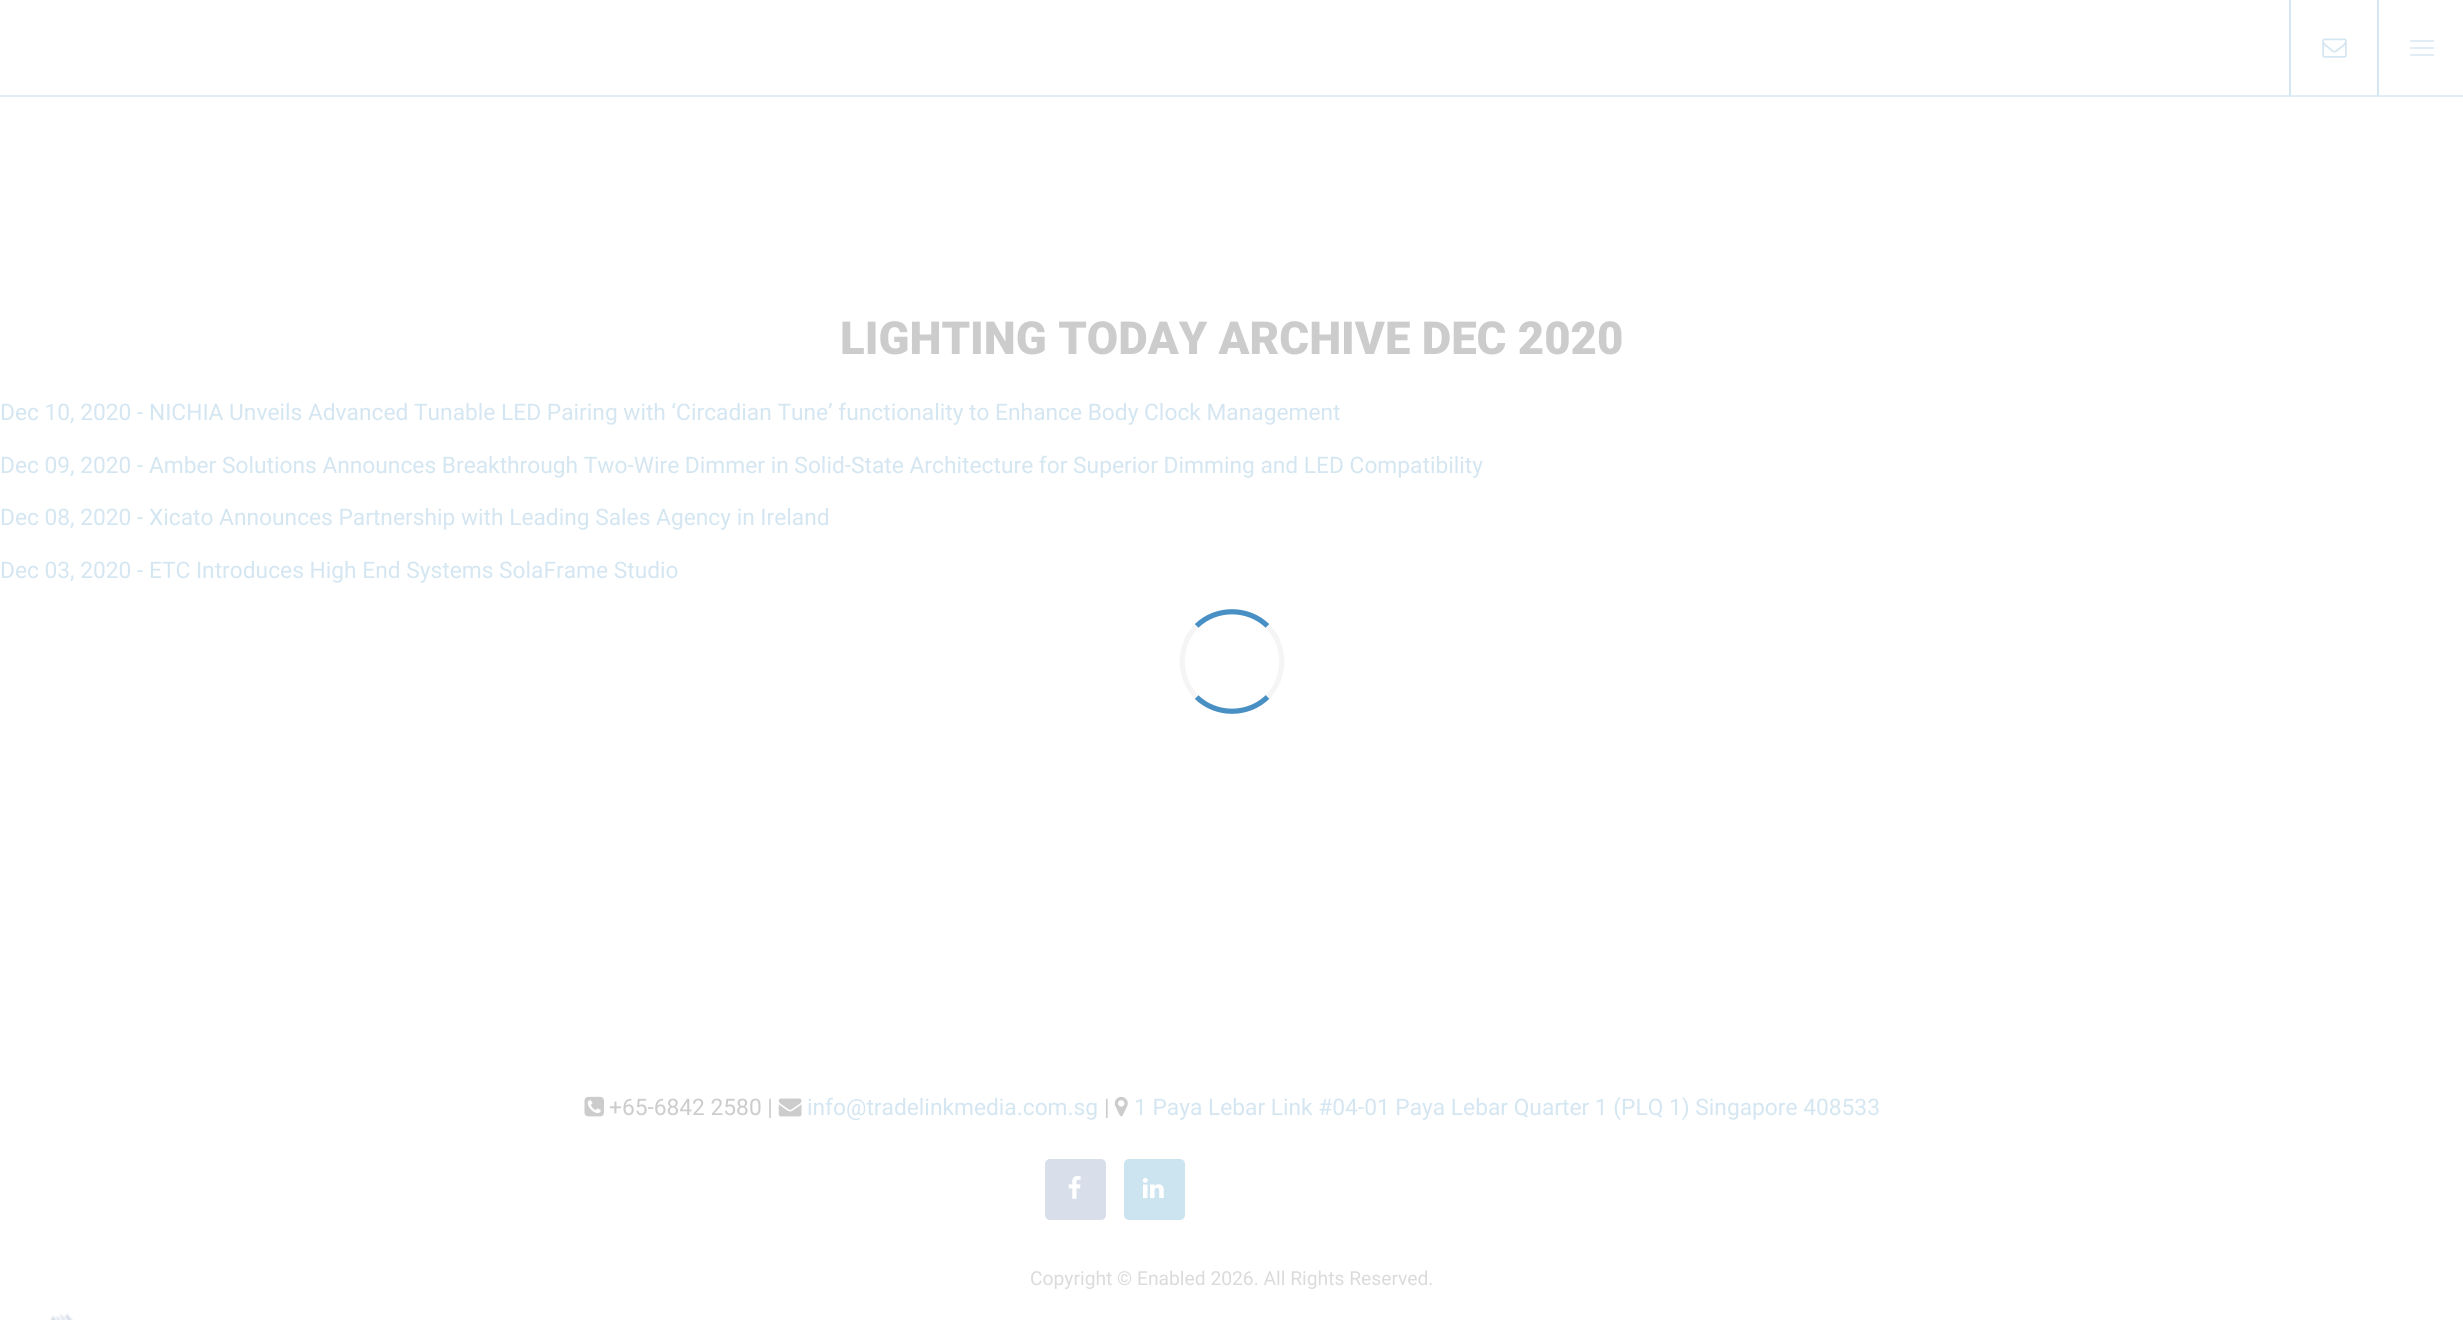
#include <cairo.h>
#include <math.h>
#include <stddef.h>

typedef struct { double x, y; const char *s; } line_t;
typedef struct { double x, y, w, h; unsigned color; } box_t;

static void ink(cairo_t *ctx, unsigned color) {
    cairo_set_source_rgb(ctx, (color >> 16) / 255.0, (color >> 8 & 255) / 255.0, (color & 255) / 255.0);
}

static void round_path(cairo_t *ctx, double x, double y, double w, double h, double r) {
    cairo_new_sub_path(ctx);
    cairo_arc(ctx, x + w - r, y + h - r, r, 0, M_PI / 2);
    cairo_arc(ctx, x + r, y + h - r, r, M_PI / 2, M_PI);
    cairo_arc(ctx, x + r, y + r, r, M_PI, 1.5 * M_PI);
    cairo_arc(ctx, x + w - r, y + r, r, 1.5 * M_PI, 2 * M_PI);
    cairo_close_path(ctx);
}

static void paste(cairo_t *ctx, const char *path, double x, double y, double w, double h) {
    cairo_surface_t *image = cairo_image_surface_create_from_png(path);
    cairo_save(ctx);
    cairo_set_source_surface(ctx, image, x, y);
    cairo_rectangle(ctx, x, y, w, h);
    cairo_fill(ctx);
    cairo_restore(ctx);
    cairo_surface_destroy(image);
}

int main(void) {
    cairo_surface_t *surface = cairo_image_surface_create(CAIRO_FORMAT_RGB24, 2463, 1320);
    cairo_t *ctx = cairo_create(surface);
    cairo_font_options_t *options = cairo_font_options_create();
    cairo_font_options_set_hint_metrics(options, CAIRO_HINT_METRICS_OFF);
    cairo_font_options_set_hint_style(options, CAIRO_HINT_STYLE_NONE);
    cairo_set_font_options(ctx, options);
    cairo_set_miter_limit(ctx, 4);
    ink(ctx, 0xFFFFFF);
    cairo_paint(ctx);
    ink(ctx, 0xE2EDF6);
    cairo_rectangle(ctx, 0, 95, 2463, 2);
    cairo_fill(ctx);
    ink(ctx, 0xD4E6F1);
    cairo_rectangle(ctx, 2289, 0, 2, 96);
    cairo_fill(ctx);
    paste(ctx, "media/1.png", 2322, 38, 25, 20);
    {
        static const box_t items[] = {
            {2377, 0, 2, 96, 0xD4E6F1},
            {2410, 40, 24, 2, 0xE2EDF6},
            {2410, 47, 24, 2, 0xE2EDF6},
            {2410, 54, 24, 2, 0xE2EDF6},
        };
        for (size_t i = 0; i < sizeof items / sizeof *items; i++) {
            ink(ctx, items[i].color);
            cairo_rectangle(ctx, items[i].x, items[i].y, items[i].w, items[i].h);
            cairo_fill(ctx);
        }
    }
    cairo_select_font_face(ctx, "Roboto Black", CAIRO_FONT_SLANT_NORMAL, CAIRO_FONT_WEIGHT_NORMAL);
    cairo_set_font_size(ctx, 45.5);
    ink(ctx, 0xCCCCCC);
    cairo_move_to(ctx, 840, 354);
    cairo_show_text(ctx, "LIGHTING TODAY ARCHIVE DEC 2020");
    cairo_select_font_face(ctx, "Roboto", CAIRO_FONT_SLANT_NORMAL, CAIRO_FONT_WEIGHT_NORMAL);
    cairo_set_font_size(ctx, 22.75);
    ink(ctx, 0xD4E6F1);
    {
        static const line_t items[] = {
            {0, 420, "Dec 10, 2020 - NICHIA Unveils Advanced Tunable LED Pairing with ‘Circadian Tune’ functionality to Enhance Body Clock Management"},
            {0, 473, "Dec 09, 2020 - Amber Solutions Announces Breakthrough Two-Wire Dimmer in Solid-State Architecture for Superior Dimming and LED Compatibility"},
            {0, 525, "Dec 08, 2020 - Xicato Announces Partnership with Leading Sales Agency in Ireland"},
            {0, 578, "Dec 03, 2020 - ETC Introduces High End Systems SolaFrame Studio"},
        };
        for (size_t i = 0; i < sizeof items / sizeof *items; i++) {
            cairo_move_to(ctx, items[i].x, items[i].y);
            cairo_show_text(ctx, items[i].s);
        }
    }
    paste(ctx, "media/2.png", 584, 1096, 20, 21);
    ink(ctx, 0xCCCCCC);
    cairo_move_to(ctx, 609, 1115);
    cairo_show_text(ctx, "+65-6842 2580 |");
    paste(ctx, "media/3.png", 778, 1098, 24, 19);
    ink(ctx, 0xD4E6F1);
    cairo_move_to(ctx, 807, 1115);
    cairo_show_text(ctx, "info@tradelinkmedia.com.sg");
    ink(ctx, 0xCCCCCC);
    cairo_move_to(ctx, 1104, 1115);
    cairo_show_text(ctx, "|");
    paste(ctx, "media/4.png", 1114, 1096, 14, 21);
    ink(ctx, 0xD4E6F1);
    cairo_move_to(ctx, 1134, 1115);
    cairo_show_text(ctx, "1 Paya Lebar Link #04-01 Paya Lebar Quarter 1 (PLQ 1) Singapore 408533");
    ink(ctx, 0xD8DEEA);
    round_path(ctx, 1045, 1159, 61, 61, 5);
    cairo_fill(ctx);
    paste(ctx, "media/5.png", 1068, 1176, 13, 23);
    ink(ctx, 0xCCE4F0);
    round_path(ctx, 1124, 1159, 61, 61, 5);
    cairo_fill(ctx);
    paste(ctx, "media/6.png", 1142, 1178, 22, 21);
    cairo_set_font_size(ctx, 19.25);
    ink(ctx, 0xDBDBDB);
    cairo_move_to(ctx, 1030, 1285);
    cairo_show_text(ctx, "Copyright © Enabled 2026. All Rights Reserved.");
    paste(ctx, "media/7.png", 49, 1312, 25, 8);
    cairo_new_path(ctx);
    cairo_move_to(ctx, 1196.5, 626);
    cairo_curve_to(ctx, 1216, 607, 1248, 607, 1267.5, 626);
    ink(ctx, 0x488FC4);
    cairo_set_line_width(ctx, 5.2);
    cairo_stroke(ctx);
    cairo_new_path(ctx);
    cairo_move_to(ctx, 1267.5, 626);
    cairo_curve_to(ctx, 1286.5, 645.5, 1286.5, 677.5, 1267.5, 697);
    ink(ctx, 0xF5F5F5);
    cairo_stroke(ctx);
    cairo_new_path(ctx);
    cairo_move_to(ctx, 1267.5, 697);
    cairo_curve_to(ctx, 1248, 716, 1216, 716, 1196.5, 697);
    ink(ctx, 0x488FC4);
    cairo_stroke(ctx);
    cairo_new_path(ctx);
    cairo_move_to(ctx, 1196.5, 697);
    cairo_curve_to(ctx, 1177.5, 677.5, 1177.5, 645.5, 1196.5, 626);
    ink(ctx, 0xF5F5F5);
    cairo_stroke(ctx);
    cairo_surface_write_to_png(surface, "image.png");
    cairo_font_options_destroy(options);
    cairo_destroy(ctx);
    cairo_surface_destroy(surface);
    return 0;
}
